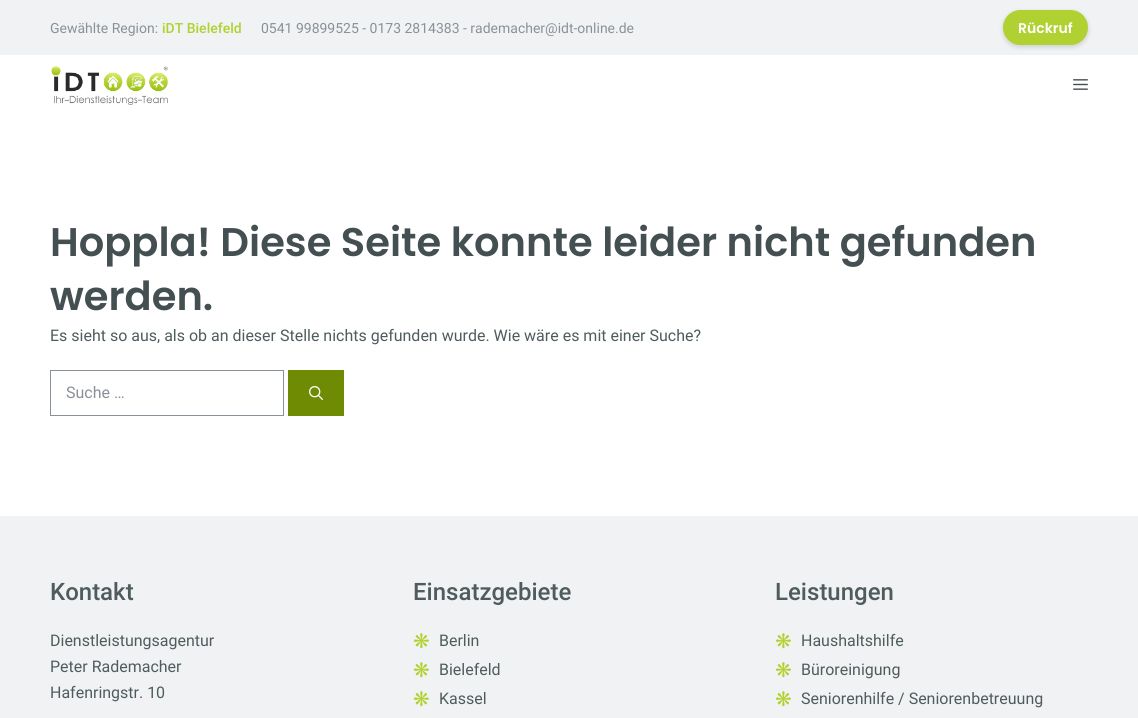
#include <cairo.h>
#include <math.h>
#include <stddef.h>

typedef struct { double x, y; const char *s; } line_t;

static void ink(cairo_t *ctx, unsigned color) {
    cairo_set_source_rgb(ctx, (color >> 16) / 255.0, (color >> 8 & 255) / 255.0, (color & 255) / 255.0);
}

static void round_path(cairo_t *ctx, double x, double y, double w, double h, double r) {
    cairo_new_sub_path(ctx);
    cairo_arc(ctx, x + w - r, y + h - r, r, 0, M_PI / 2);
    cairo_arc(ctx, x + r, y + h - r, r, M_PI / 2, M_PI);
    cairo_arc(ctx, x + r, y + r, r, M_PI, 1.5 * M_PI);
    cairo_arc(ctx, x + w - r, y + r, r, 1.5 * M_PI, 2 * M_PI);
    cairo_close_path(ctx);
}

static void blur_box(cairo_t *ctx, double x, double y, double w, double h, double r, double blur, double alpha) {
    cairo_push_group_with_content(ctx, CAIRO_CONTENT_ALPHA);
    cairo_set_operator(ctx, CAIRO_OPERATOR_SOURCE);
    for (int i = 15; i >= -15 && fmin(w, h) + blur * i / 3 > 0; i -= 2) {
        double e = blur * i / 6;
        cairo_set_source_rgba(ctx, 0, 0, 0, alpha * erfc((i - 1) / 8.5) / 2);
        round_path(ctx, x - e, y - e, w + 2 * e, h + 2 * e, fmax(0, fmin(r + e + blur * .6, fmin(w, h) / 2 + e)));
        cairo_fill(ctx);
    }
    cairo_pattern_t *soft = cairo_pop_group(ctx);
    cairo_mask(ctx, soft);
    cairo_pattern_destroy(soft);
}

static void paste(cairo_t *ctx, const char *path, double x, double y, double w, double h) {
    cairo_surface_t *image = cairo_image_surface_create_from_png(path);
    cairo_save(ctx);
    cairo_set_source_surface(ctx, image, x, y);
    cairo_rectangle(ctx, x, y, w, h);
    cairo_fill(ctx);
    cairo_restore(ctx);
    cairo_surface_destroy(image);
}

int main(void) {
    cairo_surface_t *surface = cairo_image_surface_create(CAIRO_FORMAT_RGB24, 1138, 718);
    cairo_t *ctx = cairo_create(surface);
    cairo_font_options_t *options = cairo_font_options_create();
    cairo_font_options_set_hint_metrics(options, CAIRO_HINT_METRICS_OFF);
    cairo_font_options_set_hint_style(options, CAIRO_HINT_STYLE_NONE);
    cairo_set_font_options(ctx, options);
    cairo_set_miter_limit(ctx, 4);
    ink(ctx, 0xFFFFFF);
    cairo_paint(ctx);
    ink(ctx, 0xF1F2F3);
    cairo_rectangle(ctx, 0, 0, 1138, 55);
    cairo_fill(ctx);
    cairo_select_font_face(ctx, "Roboto", CAIRO_FONT_SLANT_NORMAL, CAIRO_FONT_WEIGHT_NORMAL);
    cairo_set_font_size(ctx, 14);
    ink(ctx, 0x899198);
    cairo_move_to(ctx, 50, 33);
    cairo_show_text(ctx, "Gewählte Region:");
    cairo_select_font_face(ctx, "Roboto Medium", CAIRO_FONT_SLANT_NORMAL, CAIRO_FONT_WEIGHT_NORMAL);
    ink(ctx, 0xB1D132);
    cairo_move_to(ctx, 162, 33);
    cairo_show_text(ctx, "iDT Bielefeld");
    cairo_select_font_face(ctx, "Roboto", CAIRO_FONT_SLANT_NORMAL, CAIRO_FONT_WEIGHT_NORMAL);
    ink(ctx, 0x899198);
    cairo_move_to(ctx, 261, 33);
    cairo_show_text(ctx, "0541 99899525 - 0173 2814383 - rademacher@idt-online.de");
    ink(ctx, 0x000000);
    blur_box(ctx, 1003, 12, 85, 35, 17.5, 2.5, 0.15);
    ink(ctx, 0xB1D132);
    round_path(ctx, 1003, 10, 85, 35, 17.5);
    cairo_fill(ctx);
    cairo_select_font_face(ctx, "Poppins SemiBold", CAIRO_FONT_SLANT_NORMAL, CAIRO_FONT_WEIGHT_NORMAL);
    ink(ctx, 0xFFFFFF);
    cairo_move_to(ctx, 1018, 33);
    cairo_show_text(ctx, "Rückruf");
    paste(ctx, "media/1.png", 51, 66, 117, 39);
    paste(ctx, "media/2.png", 1073, 79, 15, 11);
    cairo_set_font_size(ctx, 40);
    ink(ctx, 0x444F51);
    cairo_move_to(ctx, 50, 256);
    cairo_show_text(ctx, "Hoppla! Diese Seite konnte leider nicht gefunden");
    cairo_move_to(ctx, 50, 310);
    cairo_show_text(ctx, "werden.");
    cairo_select_font_face(ctx, "Roboto", CAIRO_FONT_SLANT_NORMAL, CAIRO_FONT_WEIGHT_NORMAL);
    cairo_set_font_size(ctx, 16);
    ink(ctx, 0x4E5C5E);
    cairo_move_to(ctx, 50, 341);
    cairo_show_text(ctx, "Es sieht so aus, als ob an dieser Stelle nichts gefunden wurde. Wie wäre es mit einer Suche?");
    cairo_rectangle(ctx, 50.5, 370.5, 233, 45);
    ink(ctx, 0x899198);
    cairo_set_line_width(ctx, 1);
    cairo_stroke(ctx);
    cairo_move_to(ctx, 66, 398);
    cairo_show_text(ctx, "Suche …");
    ink(ctx, 0x6F8A03);
    cairo_rectangle(ctx, 288, 370, 56, 46);
    cairo_fill(ctx);
    paste(ctx, "media/3.png", 309, 386, 14, 14);
    ink(ctx, 0xF1F2F3);
    cairo_rectangle(ctx, 0, 516, 1138, 202);
    cairo_fill(ctx);
    cairo_select_font_face(ctx, "Roboto Medium", CAIRO_FONT_SLANT_NORMAL, CAIRO_FONT_WEIGHT_NORMAL);
    cairo_set_font_size(ctx, 24);
    ink(ctx, 0x4E5C5E);
    cairo_move_to(ctx, 50, 600);
    cairo_show_text(ctx, "Kontakt");
    cairo_select_font_face(ctx, "Roboto", CAIRO_FONT_SLANT_NORMAL, CAIRO_FONT_WEIGHT_NORMAL);
    cairo_set_font_size(ctx, 16);
    {
        static const line_t items[] = {
            {50, 646, "Dienstleistungsagentur"},
            {50, 672, "Peter Rademacher"},
            {50, 698, "Hafenringstr. 10"},
        };
        for (size_t i = 0; i < sizeof items / sizeof *items; i++) {
            cairo_move_to(ctx, items[i].x, items[i].y);
            cairo_show_text(ctx, items[i].s);
        }
    }
    cairo_select_font_face(ctx, "Roboto Medium", CAIRO_FONT_SLANT_NORMAL, CAIRO_FONT_WEIGHT_NORMAL);
    cairo_set_font_size(ctx, 24);
    cairo_move_to(ctx, 413, 600);
    cairo_show_text(ctx, "Einsatzgebiete");
    cairo_select_font_face(ctx, "DejaVu Sans", CAIRO_FONT_SLANT_NORMAL, CAIRO_FONT_WEIGHT_NORMAL);
    cairo_set_font_size(ctx, 20);
    ink(ctx, 0xB1D132);
    cairo_move_to(ctx, 413, 648);
    cairo_show_text(ctx, "❋");
    cairo_select_font_face(ctx, "Roboto", CAIRO_FONT_SLANT_NORMAL, CAIRO_FONT_WEIGHT_NORMAL);
    cairo_set_font_size(ctx, 16);
    ink(ctx, 0x4E5C5E);
    cairo_move_to(ctx, 439, 646);
    cairo_show_text(ctx, "Berlin");
    cairo_select_font_face(ctx, "DejaVu Sans", CAIRO_FONT_SLANT_NORMAL, CAIRO_FONT_WEIGHT_NORMAL);
    cairo_set_font_size(ctx, 20);
    ink(ctx, 0xB1D132);
    cairo_move_to(ctx, 413, 677);
    cairo_show_text(ctx, "❋");
    cairo_select_font_face(ctx, "Roboto", CAIRO_FONT_SLANT_NORMAL, CAIRO_FONT_WEIGHT_NORMAL);
    cairo_set_font_size(ctx, 16);
    ink(ctx, 0x4E5C5E);
    cairo_move_to(ctx, 439, 675);
    cairo_show_text(ctx, "Bielefeld");
    cairo_select_font_face(ctx, "DejaVu Sans", CAIRO_FONT_SLANT_NORMAL, CAIRO_FONT_WEIGHT_NORMAL);
    cairo_set_font_size(ctx, 20);
    ink(ctx, 0xB1D132);
    cairo_move_to(ctx, 413, 706);
    cairo_show_text(ctx, "❋");
    cairo_select_font_face(ctx, "Roboto", CAIRO_FONT_SLANT_NORMAL, CAIRO_FONT_WEIGHT_NORMAL);
    cairo_set_font_size(ctx, 16);
    ink(ctx, 0x4E5C5E);
    cairo_move_to(ctx, 439, 704);
    cairo_show_text(ctx, "Kassel");
    cairo_select_font_face(ctx, "Roboto Medium", CAIRO_FONT_SLANT_NORMAL, CAIRO_FONT_WEIGHT_NORMAL);
    cairo_set_font_size(ctx, 24);
    cairo_move_to(ctx, 775, 600);
    cairo_show_text(ctx, "Leistungen");
    cairo_select_font_face(ctx, "DejaVu Sans", CAIRO_FONT_SLANT_NORMAL, CAIRO_FONT_WEIGHT_NORMAL);
    cairo_set_font_size(ctx, 20);
    ink(ctx, 0xB1D132);
    cairo_move_to(ctx, 775, 648);
    cairo_show_text(ctx, "❋");
    cairo_select_font_face(ctx, "Roboto", CAIRO_FONT_SLANT_NORMAL, CAIRO_FONT_WEIGHT_NORMAL);
    cairo_set_font_size(ctx, 16);
    ink(ctx, 0x4E5C5E);
    cairo_move_to(ctx, 801, 646);
    cairo_show_text(ctx, "Haushaltshilfe");
    cairo_select_font_face(ctx, "DejaVu Sans", CAIRO_FONT_SLANT_NORMAL, CAIRO_FONT_WEIGHT_NORMAL);
    cairo_set_font_size(ctx, 20);
    ink(ctx, 0xB1D132);
    cairo_move_to(ctx, 775, 677);
    cairo_show_text(ctx, "❋");
    cairo_select_font_face(ctx, "Roboto", CAIRO_FONT_SLANT_NORMAL, CAIRO_FONT_WEIGHT_NORMAL);
    cairo_set_font_size(ctx, 16);
    ink(ctx, 0x4E5C5E);
    cairo_move_to(ctx, 801, 675);
    cairo_show_text(ctx, "Büroreinigung");
    cairo_select_font_face(ctx, "DejaVu Sans", CAIRO_FONT_SLANT_NORMAL, CAIRO_FONT_WEIGHT_NORMAL);
    cairo_set_font_size(ctx, 20);
    ink(ctx, 0xB1D132);
    cairo_move_to(ctx, 775, 706);
    cairo_show_text(ctx, "❋");
    cairo_select_font_face(ctx, "Roboto", CAIRO_FONT_SLANT_NORMAL, CAIRO_FONT_WEIGHT_NORMAL);
    cairo_set_font_size(ctx, 16);
    ink(ctx, 0x4E5C5E);
    cairo_move_to(ctx, 801, 704);
    cairo_show_text(ctx, "Seniorenhilfe / Seniorenbetreuung");
    cairo_surface_write_to_png(surface, "image.png");
    cairo_font_options_destroy(options);
    cairo_destroy(ctx);
    cairo_surface_destroy(surface);
    return 0;
}
